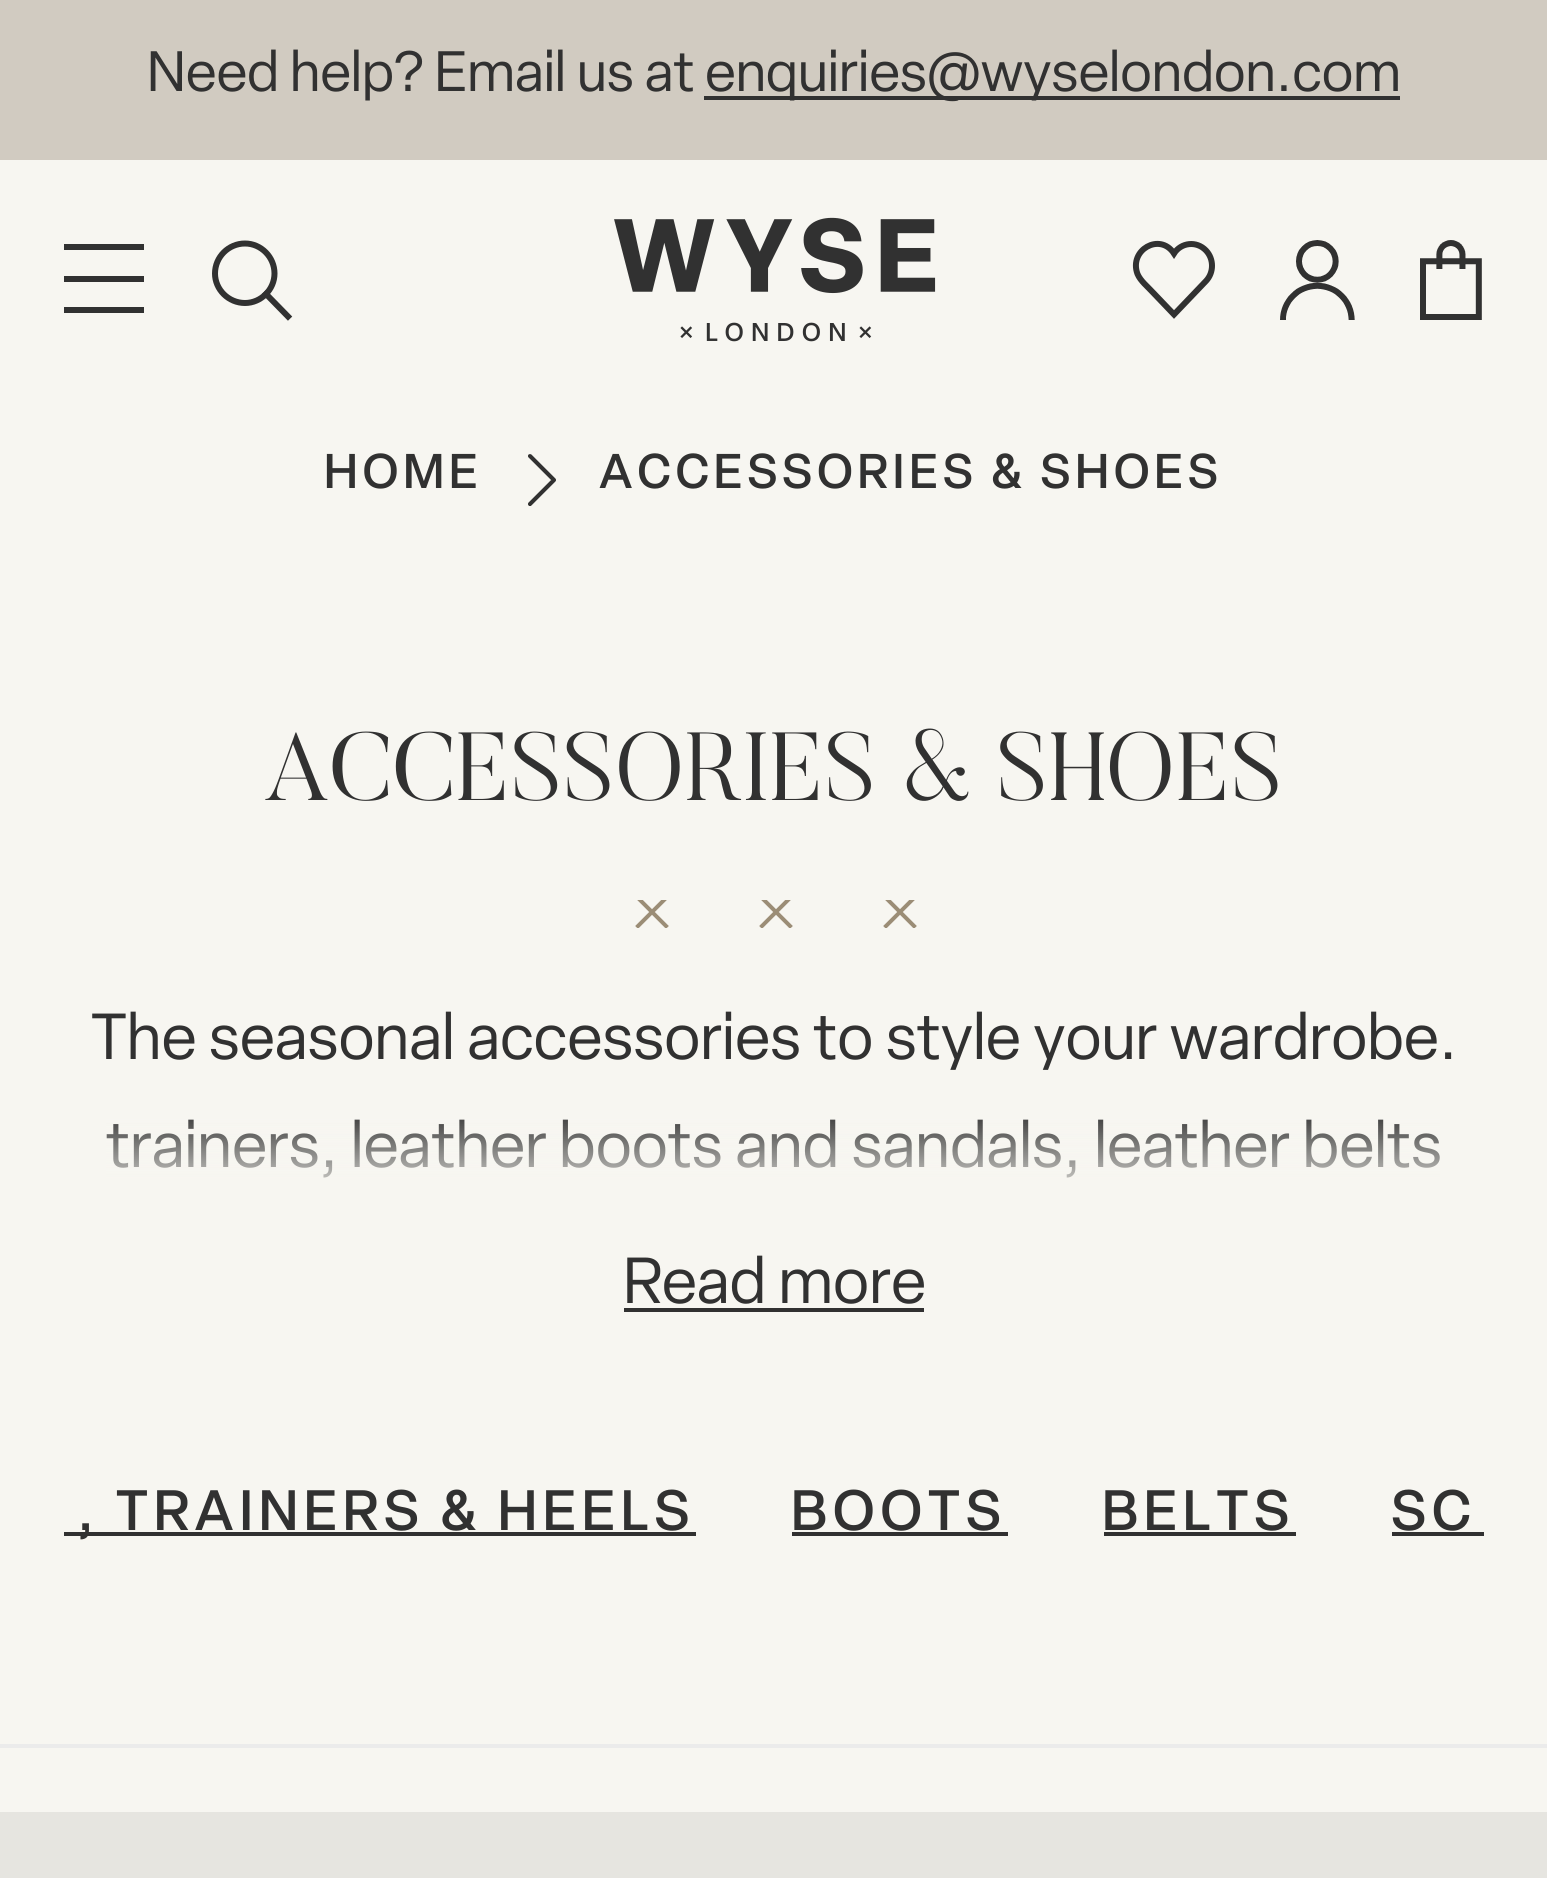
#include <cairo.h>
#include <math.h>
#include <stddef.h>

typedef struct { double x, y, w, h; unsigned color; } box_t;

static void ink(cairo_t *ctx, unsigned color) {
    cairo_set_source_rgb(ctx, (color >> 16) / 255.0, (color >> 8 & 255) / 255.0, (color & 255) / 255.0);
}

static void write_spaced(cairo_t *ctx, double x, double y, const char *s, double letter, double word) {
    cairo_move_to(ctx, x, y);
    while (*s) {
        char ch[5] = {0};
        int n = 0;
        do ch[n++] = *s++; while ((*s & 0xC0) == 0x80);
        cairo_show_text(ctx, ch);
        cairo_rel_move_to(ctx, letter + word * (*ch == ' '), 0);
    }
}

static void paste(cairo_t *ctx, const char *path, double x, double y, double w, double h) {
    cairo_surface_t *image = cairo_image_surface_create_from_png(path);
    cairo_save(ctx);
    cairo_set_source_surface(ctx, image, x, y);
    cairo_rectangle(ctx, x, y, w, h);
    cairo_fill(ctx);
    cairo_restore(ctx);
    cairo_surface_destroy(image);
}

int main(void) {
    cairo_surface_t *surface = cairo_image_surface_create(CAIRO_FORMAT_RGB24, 1547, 1878);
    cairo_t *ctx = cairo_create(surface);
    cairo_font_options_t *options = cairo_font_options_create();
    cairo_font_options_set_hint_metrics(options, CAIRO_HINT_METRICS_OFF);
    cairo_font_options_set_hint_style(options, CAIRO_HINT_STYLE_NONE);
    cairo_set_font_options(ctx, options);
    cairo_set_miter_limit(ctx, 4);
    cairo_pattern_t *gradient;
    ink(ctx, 0xF7F6F1);
    cairo_paint(ctx);
    ink(ctx, 0xD1CBC1);
    cairo_rectangle(ctx, 0, 0, 1547, 160);
    cairo_fill(ctx);
    cairo_select_font_face(ctx, "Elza", CAIRO_FONT_SLANT_NORMAL, CAIRO_FONT_WEIGHT_NORMAL);
    cairo_set_font_size(ctx, 56);
    ink(ctx, 0x313131);
    cairo_move_to(ctx, 147, 91);
    cairo_show_text(ctx, "Need help? Email us at");
    cairo_rectangle(ctx, 704, 96, 696, 4);
    cairo_fill(ctx);
    cairo_move_to(ctx, 705, 91);
    cairo_show_text(ctx, "enquiries@wyselondon.com");
    paste(ctx, "media/1.png", 614, 217, 322, 125);
    {
        static const box_t items[] = {
            {64, 244, 80, 6, 0x313131},
            {64, 276, 80, 6, 0x313131},
            {64, 307, 80, 6, 0x313131},
        };
        for (size_t i = 0; i < sizeof items / sizeof *items; i++) {
            ink(ctx, items[i].color);
            cairo_rectangle(ctx, items[i].x, items[i].y, items[i].w, items[i].h);
            cairo_fill(ctx);
        }
    }
    cairo_new_path(ctx);
    cairo_move_to(ctx, 288, 316.5);
    cairo_line_to(ctx, 266, 294);
    cairo_set_line_width(ctx, 6);
    cairo_set_line_cap(ctx, CAIRO_LINE_CAP_SQUARE);
    cairo_stroke(ctx);
    cairo_new_path(ctx);
    cairo_move_to(ctx, 245, 303);
    cairo_curve_to(ctx, 261, 303, 274.5, 289.5, 274.5, 273.5);
    cairo_curve_to(ctx, 274.5, 257, 261, 243.5, 245, 243.5);
    cairo_curve_to(ctx, 228.5, 243.5, 215, 257, 215, 273.5);
    cairo_curve_to(ctx, 215, 289.5, 228.5, 303, 245, 303);
    cairo_close_path(ctx);
    cairo_stroke(ctx);
    cairo_new_path(ctx);
    cairo_move_to(ctx, 1206, 250.5);
    cairo_curve_to(ctx, 1196.5, 240.5, 1181, 242.5, 1174, 253.5);
    cairo_curve_to(ctx, 1160, 232, 1128.5, 250, 1137.5, 274);
    cairo_curve_to(ctx, 1140.5, 281, 1147.5, 286.5, 1152.5, 292);
    cairo_line_to(ctx, 1174, 314.5);
    cairo_line_to(ctx, 1206, 281);
    cairo_curve_to(ctx, 1214, 272.5, 1214, 259, 1206, 250.5);
    cairo_close_path(ctx);
    cairo_stroke(ctx);
    paste(ctx, "media/2.png", 1280, 240, 75, 80);
    paste(ctx, "media/3.png", 1420, 240, 62, 80);
    cairo_select_font_face(ctx, "Elza Medium", CAIRO_FONT_SLANT_NORMAL, CAIRO_FONT_WEIGHT_NORMAL);
    cairo_set_font_size(ctx, 48);
    write_spaced(ctx, 324, 488, "HOME", 4.75, 0);
    paste(ctx, "media/4.png", 528, 454, 28, 52);
    write_spaced(ctx, 599, 488, "ACCESSORIES & SHOES", 4.75, 0);
    cairo_select_font_face(ctx, "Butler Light", CAIRO_FONT_SLANT_NORMAL, CAIRO_FONT_WEIGHT_NORMAL);
    cairo_set_font_size(ctx, 96);
    cairo_move_to(ctx, 264, 800);
    cairo_show_text(ctx, "ACCESSORIES & SHOES");
    cairo_save(ctx);
    cairo_rectangle(ctx, 880, 900, 40, 28);
    cairo_clip(ctx);
    cairo_new_path(ctx);
    cairo_move_to(ctx, 914, 898);
    cairo_line_to(ctx, 886, 926);
    cairo_move_to(ctx, 886, 898);
    cairo_line_to(ctx, 914, 926);
    ink(ctx, 0x9B8D76);
    cairo_set_line_width(ctx, 4);
    cairo_set_line_join(ctx, CAIRO_LINE_JOIN_ROUND);
    cairo_stroke(ctx);
    cairo_restore(ctx);
    cairo_save(ctx);
    cairo_rectangle(ctx, 756, 900, 40, 28);
    cairo_clip(ctx);
    cairo_new_path(ctx);
    cairo_move_to(ctx, 790, 898);
    cairo_line_to(ctx, 762, 926);
    cairo_move_to(ctx, 762, 898);
    cairo_line_to(ctx, 790, 926);
    ink(ctx, 0x9B8D76);
    cairo_set_line_width(ctx, 4);
    cairo_set_line_join(ctx, CAIRO_LINE_JOIN_ROUND);
    cairo_stroke(ctx);
    cairo_restore(ctx);
    cairo_save(ctx);
    cairo_rectangle(ctx, 632, 900, 40, 28);
    cairo_clip(ctx);
    cairo_new_path(ctx);
    cairo_move_to(ctx, 666, 898);
    cairo_line_to(ctx, 638, 926);
    cairo_move_to(ctx, 638, 898);
    cairo_line_to(ctx, 666, 926);
    ink(ctx, 0x9B8D76);
    cairo_set_line_width(ctx, 4);
    cairo_set_line_join(ctx, CAIRO_LINE_JOIN_ROUND);
    cairo_stroke(ctx);
    cairo_restore(ctx);
    cairo_select_font_face(ctx, "Elza", CAIRO_FONT_SLANT_NORMAL, CAIRO_FONT_WEIGHT_NORMAL);
    cairo_set_font_size(ctx, 64);
    cairo_move_to(ctx, 91, 1059);
    cairo_show_text(ctx, "The seasonal accessories to style your wardrobe.");
    cairo_move_to(ctx, 106, 1167);
    cairo_show_text(ctx, "trainers, leather boots and sandals, leather belts");
    gradient = cairo_pattern_create_linear(774, 1208, 774, 1108);
    cairo_pattern_add_color_stop_rgba(gradient, 0, 0.969, 0.965, 0.945, 1);
    cairo_pattern_add_color_stop_rgba(gradient, 1, 0.969, 0.965, 0.945, 0);
    cairo_set_source(ctx, gradient);
    cairo_pattern_destroy(gradient);
    cairo_rectangle(ctx, 106, 1119, 1334, 59);
    cairo_fill(ctx);
    ink(ctx, 0x313131);
    cairo_move_to(ctx, 623, 1303);
    cairo_show_text(ctx, "Read more");
    cairo_rectangle(ctx, 624, 1308, 300, 4);
    cairo_fill(ctx);
    cairo_select_font_face(ctx, "Elza Medium", CAIRO_FONT_SLANT_NORMAL, CAIRO_FONT_WEIGHT_NORMAL);
    cairo_set_font_size(ctx, 56);
    write_spaced(ctx, 77, 1530, ", TRAINERS & HEELS", 5.6, 0);
    cairo_rectangle(ctx, 64, 1532, 632, 4);
    cairo_fill(ctx);
    write_spaced(ctx, 791, 1530, "BOOTS", 5.6, 0);
    cairo_rectangle(ctx, 792, 1532, 216, 4);
    cairo_fill(ctx);
    write_spaced(ctx, 1102, 1530, "BELTS", 5.6, 0);
    cairo_rectangle(ctx, 1104, 1532, 192, 4);
    cairo_fill(ctx);
    write_spaced(ctx, 1391, 1530, "SC", 5.6, 0);
    {
        static const box_t items[] = {
            {1392, 1532, 92, 4, 0x313131},
            {0, 1744, 1547, 4, 0xEBEBEB},
            {0, 1812, 1547, 66, 0xE6E5E0},
        };
        for (size_t i = 0; i < sizeof items / sizeof *items; i++) {
            ink(ctx, items[i].color);
            cairo_rectangle(ctx, items[i].x, items[i].y, items[i].w, items[i].h);
            cairo_fill(ctx);
        }
    }
    cairo_surface_write_to_png(surface, "image.png");
    cairo_font_options_destroy(options);
    cairo_destroy(ctx);
    cairo_surface_destroy(surface);
    return 0;
}
